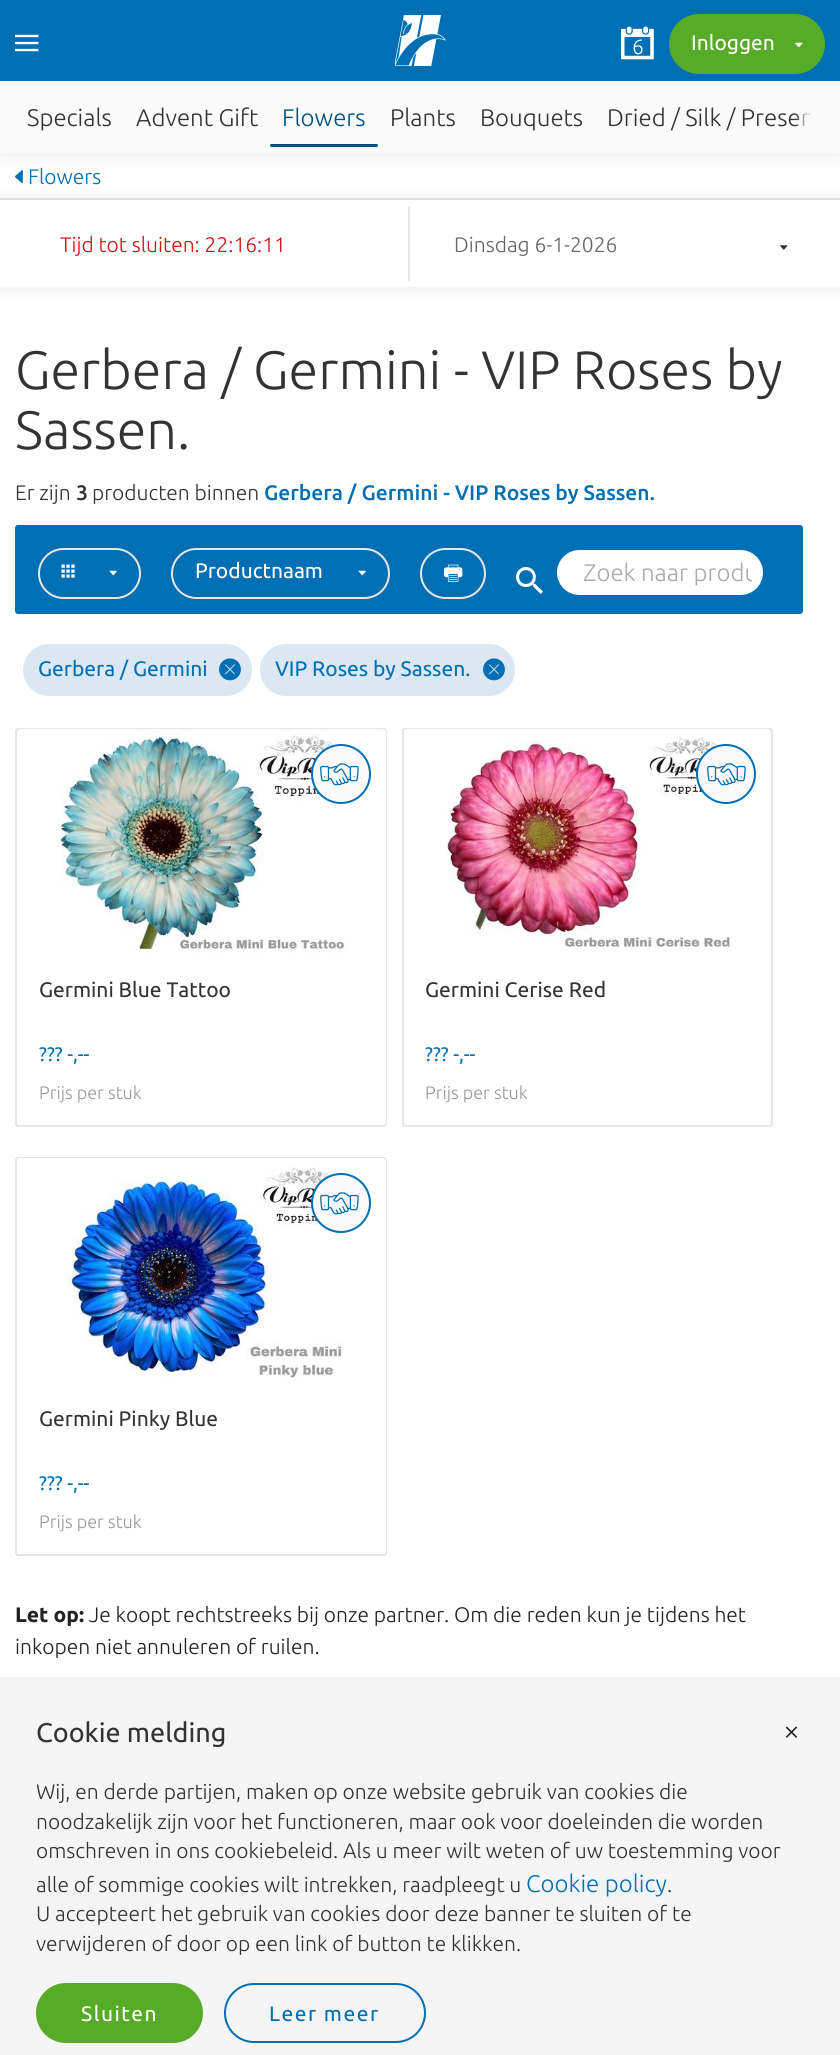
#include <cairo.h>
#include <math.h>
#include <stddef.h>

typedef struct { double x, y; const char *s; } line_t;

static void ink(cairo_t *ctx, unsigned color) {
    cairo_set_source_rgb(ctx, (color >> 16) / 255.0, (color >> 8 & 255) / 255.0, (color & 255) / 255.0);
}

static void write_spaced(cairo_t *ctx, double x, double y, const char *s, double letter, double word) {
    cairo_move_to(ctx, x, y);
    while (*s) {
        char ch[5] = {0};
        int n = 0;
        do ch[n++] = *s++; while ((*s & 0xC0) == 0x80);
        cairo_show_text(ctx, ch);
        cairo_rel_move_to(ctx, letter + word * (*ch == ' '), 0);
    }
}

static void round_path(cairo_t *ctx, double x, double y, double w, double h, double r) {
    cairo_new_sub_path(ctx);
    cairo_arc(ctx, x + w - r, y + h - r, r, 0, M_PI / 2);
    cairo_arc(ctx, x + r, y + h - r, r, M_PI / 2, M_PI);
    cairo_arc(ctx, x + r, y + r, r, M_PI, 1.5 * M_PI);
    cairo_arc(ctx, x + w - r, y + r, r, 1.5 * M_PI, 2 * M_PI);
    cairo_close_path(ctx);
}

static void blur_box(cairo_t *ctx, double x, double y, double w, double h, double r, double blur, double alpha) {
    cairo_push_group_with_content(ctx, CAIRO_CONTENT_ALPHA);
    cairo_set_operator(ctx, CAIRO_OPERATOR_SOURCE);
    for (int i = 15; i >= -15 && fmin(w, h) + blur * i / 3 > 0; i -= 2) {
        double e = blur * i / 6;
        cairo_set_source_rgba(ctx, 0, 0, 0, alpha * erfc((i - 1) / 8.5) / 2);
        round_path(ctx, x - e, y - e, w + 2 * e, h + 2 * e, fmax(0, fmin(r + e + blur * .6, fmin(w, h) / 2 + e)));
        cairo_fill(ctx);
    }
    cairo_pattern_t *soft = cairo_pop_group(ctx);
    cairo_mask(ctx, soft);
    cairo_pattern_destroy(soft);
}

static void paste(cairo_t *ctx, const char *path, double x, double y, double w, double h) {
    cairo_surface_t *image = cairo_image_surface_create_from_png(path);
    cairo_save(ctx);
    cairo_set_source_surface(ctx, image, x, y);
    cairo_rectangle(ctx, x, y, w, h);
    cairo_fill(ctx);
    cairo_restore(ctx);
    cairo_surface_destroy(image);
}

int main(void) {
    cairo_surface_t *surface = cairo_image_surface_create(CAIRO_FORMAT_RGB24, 840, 2055);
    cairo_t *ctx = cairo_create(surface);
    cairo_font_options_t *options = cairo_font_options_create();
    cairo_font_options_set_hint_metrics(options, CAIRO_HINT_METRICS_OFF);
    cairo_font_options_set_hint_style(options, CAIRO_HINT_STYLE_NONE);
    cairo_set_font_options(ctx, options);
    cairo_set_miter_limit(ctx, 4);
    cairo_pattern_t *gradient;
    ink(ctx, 0xFFFFFF);
    cairo_paint(ctx);
    paste(ctx, "media/5.png", 15, 170, 8, 14);
    ink(ctx, 0x000000);
    blur_box(ctx, 0, 0, 840, 153, 0, 7.5, 0.1);
    ink(ctx, 0x006FB4);
    cairo_rectangle(ctx, 0, 0, 840, 81);
    cairo_fill(ctx);
    paste(ctx, "media/1.png", 15, 34, 24, 18);
    paste(ctx, "media/2.png", 395, 15, 51, 51);
    cairo_select_font_face(ctx, "Ubuntu Light", CAIRO_FONT_SLANT_NORMAL, CAIRO_FONT_WEIGHT_NORMAL);
    cairo_set_font_size(ctx, 21);
    ink(ctx, 0xFFFFFF);
    cairo_move_to(ctx, 632, 54);
    cairo_show_text(ctx, "6");
    paste(ctx, "media/3.png", 621, 26, 33, 34);
    ink(ctx, 0x57AB27);
    round_path(ctx, 669, 14, 156, 60, 30);
    cairo_fill(ctx);
    cairo_select_font_face(ctx, "Ubuntu", CAIRO_FONT_SLANT_NORMAL, CAIRO_FONT_WEIGHT_NORMAL);
    ink(ctx, 0xFFFFFF);
    cairo_move_to(ctx, 691, 50);
    cairo_show_text(ctx, "Inloggen");
    paste(ctx, "media/4.png", 795, 42, 8, 6);
    ink(ctx, 0xFAFAFA);
    cairo_rectangle(ctx, 0, 81, 840, 72);
    cairo_fill(ctx);
    cairo_select_font_face(ctx, "Ubuntu Light", CAIRO_FONT_SLANT_NORMAL, CAIRO_FONT_WEIGHT_NORMAL);
    cairo_set_font_size(ctx, 24);
    ink(ctx, 0x333333);
    cairo_move_to(ctx, 27, 126);
    cairo_show_text(ctx, "Specials");
    cairo_move_to(ctx, 136, 126);
    cairo_show_text(ctx, "Advent Gift");
    ink(ctx, 0x005081);
    cairo_move_to(ctx, 282, 126);
    cairo_show_text(ctx, "Flowers");
    round_path(ctx, 270, 144, 108, 3, 1.5);
    cairo_fill(ctx);
    ink(ctx, 0x333333);
    {
        static const line_t items[] = {
            {390, 126, "Plants"},
            {480, 126, "Bouquets"},
            {607, 126, "Dried / Silk / Preser"},
        };
        for (size_t i = 0; i < sizeof items / sizeof *items; i++) {
            cairo_move_to(ctx, items[i].x, items[i].y);
            cairo_show_text(ctx, items[i].s);
        }
    }
    gradient = cairo_pattern_create_linear(795, 117, 810, 117);
    cairo_pattern_add_color_stop_rgba(gradient, 0, 0.98, 0.98, 0.98, 0);
    cairo_pattern_add_color_stop_rgba(gradient, 1, 0.98, 0.98, 0.98, 1);
    cairo_set_source(ctx, gradient);
    cairo_pattern_destroy(gradient);
    cairo_rectangle(ctx, 795, 113, 14, 13);
    cairo_fill(ctx);
    ink(ctx, 0xE6E6E6);
    cairo_rectangle(ctx, 0, 198, 840, 2);
    cairo_fill(ctx);
    cairo_set_font_size(ctx, 21);
    ink(ctx, 0x006FB4);
    cairo_move_to(ctx, 28, 184);
    cairo_show_text(ctx, "Flowers");
    ink(ctx, 0x000000);
    blur_box(ctx, 0, 200, 840, 87, 0, 7.5, 0.1);
    ink(ctx, 0xFFFFFF);
    cairo_rectangle(ctx, 0, 200, 840, 87);
    cairo_fill(ctx);
    ink(ctx, 0xE6E6E6);
    cairo_rectangle(ctx, 408, 206, 2, 75);
    cairo_fill(ctx);
    ink(ctx, 0xD41111);
    cairo_move_to(ctx, 60, 252);
    cairo_show_text(ctx, "Tijd tot sluiten: 22:16:11");
    ink(ctx, 0x666666);
    cairo_move_to(ctx, 454, 252);
    cairo_show_text(ctx, "Dinsdag 6-1-2026");
    paste(ctx, "media/6.png", 780, 245, 8, 5);
    cairo_set_font_size(ctx, 54);
    ink(ctx, 0x333333);
    cairo_move_to(ctx, 15, 389);
    cairo_show_text(ctx, "Gerbera / Germini - VIP Roses by");
    cairo_move_to(ctx, 15, 449);
    cairo_show_text(ctx, "Sassen.");
    cairo_set_font_size(ctx, 21);
    cairo_move_to(ctx, 15, 500);
    cairo_show_text(ctx, "Er zijn");
    cairo_select_font_face(ctx, "Ubuntu Medium", CAIRO_FONT_SLANT_NORMAL, CAIRO_FONT_WEIGHT_NORMAL);
    cairo_move_to(ctx, 76, 500);
    cairo_show_text(ctx, "3");
    cairo_select_font_face(ctx, "Ubuntu Light", CAIRO_FONT_SLANT_NORMAL, CAIRO_FONT_WEIGHT_NORMAL);
    cairo_move_to(ctx, 92, 500);
    cairo_show_text(ctx, "producten binnen");
    cairo_select_font_face(ctx, "Ubuntu Medium", CAIRO_FONT_SLANT_NORMAL, CAIRO_FONT_WEIGHT_NORMAL);
    ink(ctx, 0x006FB4);
    cairo_move_to(ctx, 264, 500);
    cairo_show_text(ctx, "Gerbera / Germini - VIP Roses by Sassen.");
    round_path(ctx, 15, 525, 788, 89, 3);
    cairo_fill(ctx);
    round_path(ctx, 39, 549, 101, 49, 24.5);
    ink(ctx, 0xE6E6E6);
    cairo_stroke(ctx);
    paste(ctx, "media/7.png", 61, 564, 14, 14);
    paste(ctx, "media/8.png", 109, 570, 8, 6);
    round_path(ctx, 172, 549, 217, 49, 24.5);
    cairo_stroke(ctx);
    cairo_select_font_face(ctx, "Ubuntu", CAIRO_FONT_SLANT_NORMAL, CAIRO_FONT_WEIGHT_NORMAL);
    ink(ctx, 0xFFFFFF);
    cairo_move_to(ctx, 195, 578);
    cairo_show_text(ctx, "Productnaam");
    paste(ctx, "media/8.png", 358, 570, 8, 6);
    round_path(ctx, 421, 549, 64, 49, 24.5);
    ink(ctx, 0xE6E6E6);
    cairo_stroke(ctx);
    paste(ctx, "media/9.png", 444, 564, 19, 18);
    paste(ctx, "media/10.png", 516, 567, 27, 27);
    ink(ctx, 0xFFFFFF);
    round_path(ctx, 556, 549, 208, 47, 23.5);
    cairo_fill_preserve(ctx);
    ink(ctx, 0x006FB4);
    cairo_stroke(ctx);
    cairo_save(ctx);
    cairo_rectangle(ctx, 569, 560, 183, 27);
    cairo_clip(ctx);
    cairo_select_font_face(ctx, "Ubuntu Light", CAIRO_FONT_SLANT_NORMAL, CAIRO_FONT_WEIGHT_NORMAL);
    cairo_set_font_size(ctx, 24);
    ink(ctx, 0xAAAAAA);
    cairo_move_to(ctx, 583, 581);
    cairo_show_text(ctx, "Zoek naar produ");
    cairo_restore(ctx);
    ink(ctx, 0xDBE7F2);
    round_path(ctx, 23, 644, 229, 52, 26);
    cairo_fill(ctx);
    ink(ctx, 0x006FB4);
    cairo_move_to(ctx, 38, 676);
    cairo_show_text(ctx, "Gerbera / Germini");
    paste(ctx, "media/11.png", 219, 658, 22, 23);
    ink(ctx, 0xDBE7F2);
    round_path(ctx, 260, 644, 255, 52, 26);
    cairo_fill(ctx);
    ink(ctx, 0x006FB4);
    cairo_move_to(ctx, 275, 676);
    cairo_show_text(ctx, "VIP Roses by Sassen.");
    paste(ctx, "media/11.png", 483, 658, 22, 23);
    round_path(ctx, 16, 729, 370, 397, 2);
    ink(ctx, 0xE6E6E6);
    cairo_stroke(ctx);
    ink(ctx, 0xFFFFFF);
    cairo_new_path(ctx);
    cairo_move_to(ctx, 20, 729);
    cairo_line_to(ctx, 383, 729);
    cairo_curve_to(ctx, 384.5, 729, 386, 730.5, 386, 732);
    cairo_line_to(ctx, 386, 954);
    cairo_line_to(ctx, 17, 954);
    cairo_line_to(ctx, 17, 732);
    cairo_curve_to(ctx, 17, 730.5, 18.5, 729, 20, 729);
    cairo_close_path(ctx);
    cairo_fill(ctx);
    paste(ctx, "media/13.png", 57, 729, 290, 224);
    ink(ctx, 0xFAFAFA);
    cairo_arc(ctx, 341, 774, 29, 0, 2 * M_PI);
    cairo_fill_preserve(ctx);
    ink(ctx, 0x006FB4);
    cairo_stroke(ctx);
    paste(ctx, "media/12.png", 320, 763, 39, 23);
    ink(ctx, 0xFFFFFF);
    cairo_new_path(ctx);
    cairo_move_to(ctx, 17, 954);
    cairo_line_to(ctx, 386, 954);
    cairo_line_to(ctx, 386, 1122);
    cairo_curve_to(ctx, 386, 1123.5, 384.5, 1125, 383, 1125);
    cairo_line_to(ctx, 20, 1125);
    cairo_curve_to(ctx, 18.5, 1125, 17, 1123.5, 17, 1122);
    cairo_close_path(ctx);
    cairo_fill(ctx);
    ink(ctx, 0x333333);
    cairo_move_to(ctx, 39, 997);
    cairo_show_text(ctx, "Germini Blue Tattoo");
    cairo_set_font_size(ctx, 19.5);
    ink(ctx, 0x006FB4);
    cairo_move_to(ctx, 39, 1061);
    cairo_show_text(ctx, "?\077? -,--");
    cairo_select_font_face(ctx, "Ubuntu Light", CAIRO_FONT_SLANT_NORMAL, CAIRO_FONT_WEIGHT_NORMAL);
    cairo_set_font_size(ctx, 18);
    ink(ctx, 0x999999);
    cairo_move_to(ctx, 39, 1099);
    cairo_show_text(ctx, "Prijs per stuk");
    round_path(ctx, 403, 729, 369, 397, 2);
    ink(ctx, 0xE6E6E6);
    cairo_stroke(ctx);
    ink(ctx, 0xFFFFFF);
    cairo_new_path(ctx);
    cairo_move_to(ctx, 407, 729);
    cairo_line_to(ctx, 768, 729);
    cairo_curve_to(ctx, 769.5, 729, 771, 730.5, 771, 732);
    cairo_line_to(ctx, 771, 954);
    cairo_line_to(ctx, 404, 954);
    cairo_line_to(ctx, 404, 732);
    cairo_curve_to(ctx, 404, 730.5, 405.5, 729, 407, 729);
    cairo_close_path(ctx);
    cairo_fill(ctx);
    paste(ctx, "media/14.png", 447, 736, 285, 211);
    ink(ctx, 0xFAFAFA);
    cairo_arc(ctx, 726, 774, 29, 0, 2 * M_PI);
    cairo_fill_preserve(ctx);
    ink(ctx, 0x006FB4);
    cairo_stroke(ctx);
    paste(ctx, "media/12.png", 707, 763, 39, 23);
    cairo_select_font_face(ctx, "Ubuntu", CAIRO_FONT_SLANT_NORMAL, CAIRO_FONT_WEIGHT_NORMAL);
    cairo_set_font_size(ctx, 21);
    ink(ctx, 0x333333);
    cairo_move_to(ctx, 425, 997);
    cairo_show_text(ctx, "Germini Cerise Red");
    cairo_set_font_size(ctx, 19.5);
    ink(ctx, 0x006FB4);
    cairo_move_to(ctx, 425, 1061);
    cairo_show_text(ctx, "?\077? -,--");
    cairo_select_font_face(ctx, "Ubuntu Light", CAIRO_FONT_SLANT_NORMAL, CAIRO_FONT_WEIGHT_NORMAL);
    cairo_set_font_size(ctx, 18);
    ink(ctx, 0x999999);
    cairo_move_to(ctx, 425, 1099);
    cairo_show_text(ctx, "Prijs per stuk");
    round_path(ctx, 16, 1158, 370, 397, 2);
    ink(ctx, 0xE6E6E6);
    cairo_stroke(ctx);
    ink(ctx, 0xFFFFFF);
    cairo_new_path(ctx);
    cairo_move_to(ctx, 20, 1158);
    cairo_line_to(ctx, 383, 1158);
    cairo_curve_to(ctx, 384.5, 1158, 386, 1159.5, 386, 1161);
    cairo_line_to(ctx, 386, 1383);
    cairo_line_to(ctx, 17, 1383);
    cairo_line_to(ctx, 17, 1161);
    cairo_curve_to(ctx, 17, 1159.5, 18.5, 1158, 20, 1158);
    cairo_close_path(ctx);
    cairo_fill(ctx);
    paste(ctx, "media/15.png", 66, 1165, 276, 217);
    ink(ctx, 0xFAFAFA);
    cairo_arc(ctx, 341, 1203, 29, 0, 2 * M_PI);
    cairo_fill_preserve(ctx);
    ink(ctx, 0x006FB4);
    cairo_stroke(ctx);
    paste(ctx, "media/12.png", 320, 1192, 39, 23);
    ink(ctx, 0xFFFFFF);
    cairo_new_path(ctx);
    cairo_move_to(ctx, 17, 1383);
    cairo_line_to(ctx, 386, 1383);
    cairo_line_to(ctx, 386, 1551);
    cairo_curve_to(ctx, 386, 1552.5, 384.5, 1554, 383, 1554);
    cairo_line_to(ctx, 20, 1554);
    cairo_curve_to(ctx, 18.5, 1554, 17, 1552.5, 17, 1551);
    cairo_close_path(ctx);
    cairo_fill(ctx);
    cairo_select_font_face(ctx, "Ubuntu", CAIRO_FONT_SLANT_NORMAL, CAIRO_FONT_WEIGHT_NORMAL);
    cairo_set_font_size(ctx, 21);
    ink(ctx, 0x333333);
    cairo_move_to(ctx, 39, 1426);
    cairo_show_text(ctx, "Germini Pinky Blue");
    cairo_set_font_size(ctx, 19.5);
    ink(ctx, 0x006FB4);
    cairo_move_to(ctx, 39, 1490);
    cairo_show_text(ctx, "?\077? -,--");
    cairo_select_font_face(ctx, "Ubuntu Light", CAIRO_FONT_SLANT_NORMAL, CAIRO_FONT_WEIGHT_NORMAL);
    cairo_set_font_size(ctx, 18);
    ink(ctx, 0x999999);
    cairo_move_to(ctx, 39, 1528);
    cairo_show_text(ctx, "Prijs per stuk");
    cairo_select_font_face(ctx, "Ubuntu", CAIRO_FONT_SLANT_NORMAL, CAIRO_FONT_WEIGHT_BOLD);
    cairo_set_font_size(ctx, 21);
    ink(ctx, 0x222222);
    cairo_move_to(ctx, 15, 1622);
    cairo_show_text(ctx, "Let op:");
    cairo_select_font_face(ctx, "Ubuntu Light", CAIRO_FONT_SLANT_NORMAL, CAIRO_FONT_WEIGHT_NORMAL);
    cairo_move_to(ctx, 89, 1622);
    cairo_show_text(ctx, "Je koopt rechtstreeks bij onze partner. Om die reden kun je tijdens het");
    cairo_move_to(ctx, 15, 1654);
    cairo_show_text(ctx, "inkopen niet annuleren of ruilen.");
    ink(ctx, 0xF5F5F5);
    cairo_rectangle(ctx, 0, 1677, 840, 378);
    cairo_fill(ctx);
    cairo_select_font_face(ctx, "Ubuntu", CAIRO_FONT_SLANT_NORMAL, CAIRO_FONT_WEIGHT_NORMAL);
    cairo_set_font_size(ctx, 27);
    ink(ctx, 0x333333);
    cairo_move_to(ctx, 36, 1742);
    cairo_show_text(ctx, "Cookie melding");
    cairo_select_font_face(ctx, "Ubuntu Light", CAIRO_FONT_SLANT_NORMAL, CAIRO_FONT_WEIGHT_NORMAL);
    cairo_set_font_size(ctx, 21);
    {
        static const line_t items[] = {
            {36, 1799, "Wij, en derde partijen, maken op onze website gebruik van cookies die"},
            {36, 1829, "noodzakelijk zijn voor het functioneren, maar ook voor doeleinden die worden"},
            {36, 1858, "omschreven in ons cookiebeleid. Als u meer wilt weten of uw toestemming voor"},
            {36, 1892, "alle of sommige cookies wilt intrekken, raadpleegt u"},
        };
        for (size_t i = 0; i < sizeof items / sizeof *items; i++) {
            cairo_move_to(ctx, items[i].x, items[i].y);
            cairo_show_text(ctx, items[i].s);
        }
    }
    cairo_set_font_size(ctx, 24);
    ink(ctx, 0x006FB4);
    cairo_move_to(ctx, 526, 1892);
    cairo_show_text(ctx, "Cookie policy");
    cairo_set_font_size(ctx, 21);
    ink(ctx, 0x333333);
    {
        static const line_t items[] = {
            {667, 1892, "."},
            {36, 1921, "U accepteert het gebruik van cookies door deze banner te sluiten of te"},
            {36, 1951, "verwijderen of door op een link of button te klikken."},
        };
        for (size_t i = 0; i < sizeof items / sizeof *items; i++) {
            cairo_move_to(ctx, items[i].x, items[i].y);
            cairo_show_text(ctx, items[i].s);
        }
    }
    cairo_set_font_size(ctx, 30);
    ink(ctx, 0x222222);
    write_spaced(ctx, 783, 1741, "×", 1.5, 0);
    ink(ctx, 0x57AB27);
    round_path(ctx, 36, 1983, 167, 60, 30);
    cairo_fill(ctx);
    cairo_select_font_face(ctx, "Ubuntu", CAIRO_FONT_SLANT_NORMAL, CAIRO_FONT_WEIGHT_NORMAL);
    cairo_set_font_size(ctx, 21);
    ink(ctx, 0xFFFFFF);
    write_spaced(ctx, 81, 2021, "Sluiten", 1.5, 0);
    round_path(ctx, 225, 1984, 200, 58, 29);
    ink(ctx, 0x006FB4);
    cairo_stroke(ctx);
    write_spaced(ctx, 269, 2021, "Leer meer", 1.5, 0);
    cairo_surface_write_to_png(surface, "image.png");
    cairo_font_options_destroy(options);
    cairo_destroy(ctx);
    cairo_surface_destroy(surface);
    return 0;
}
